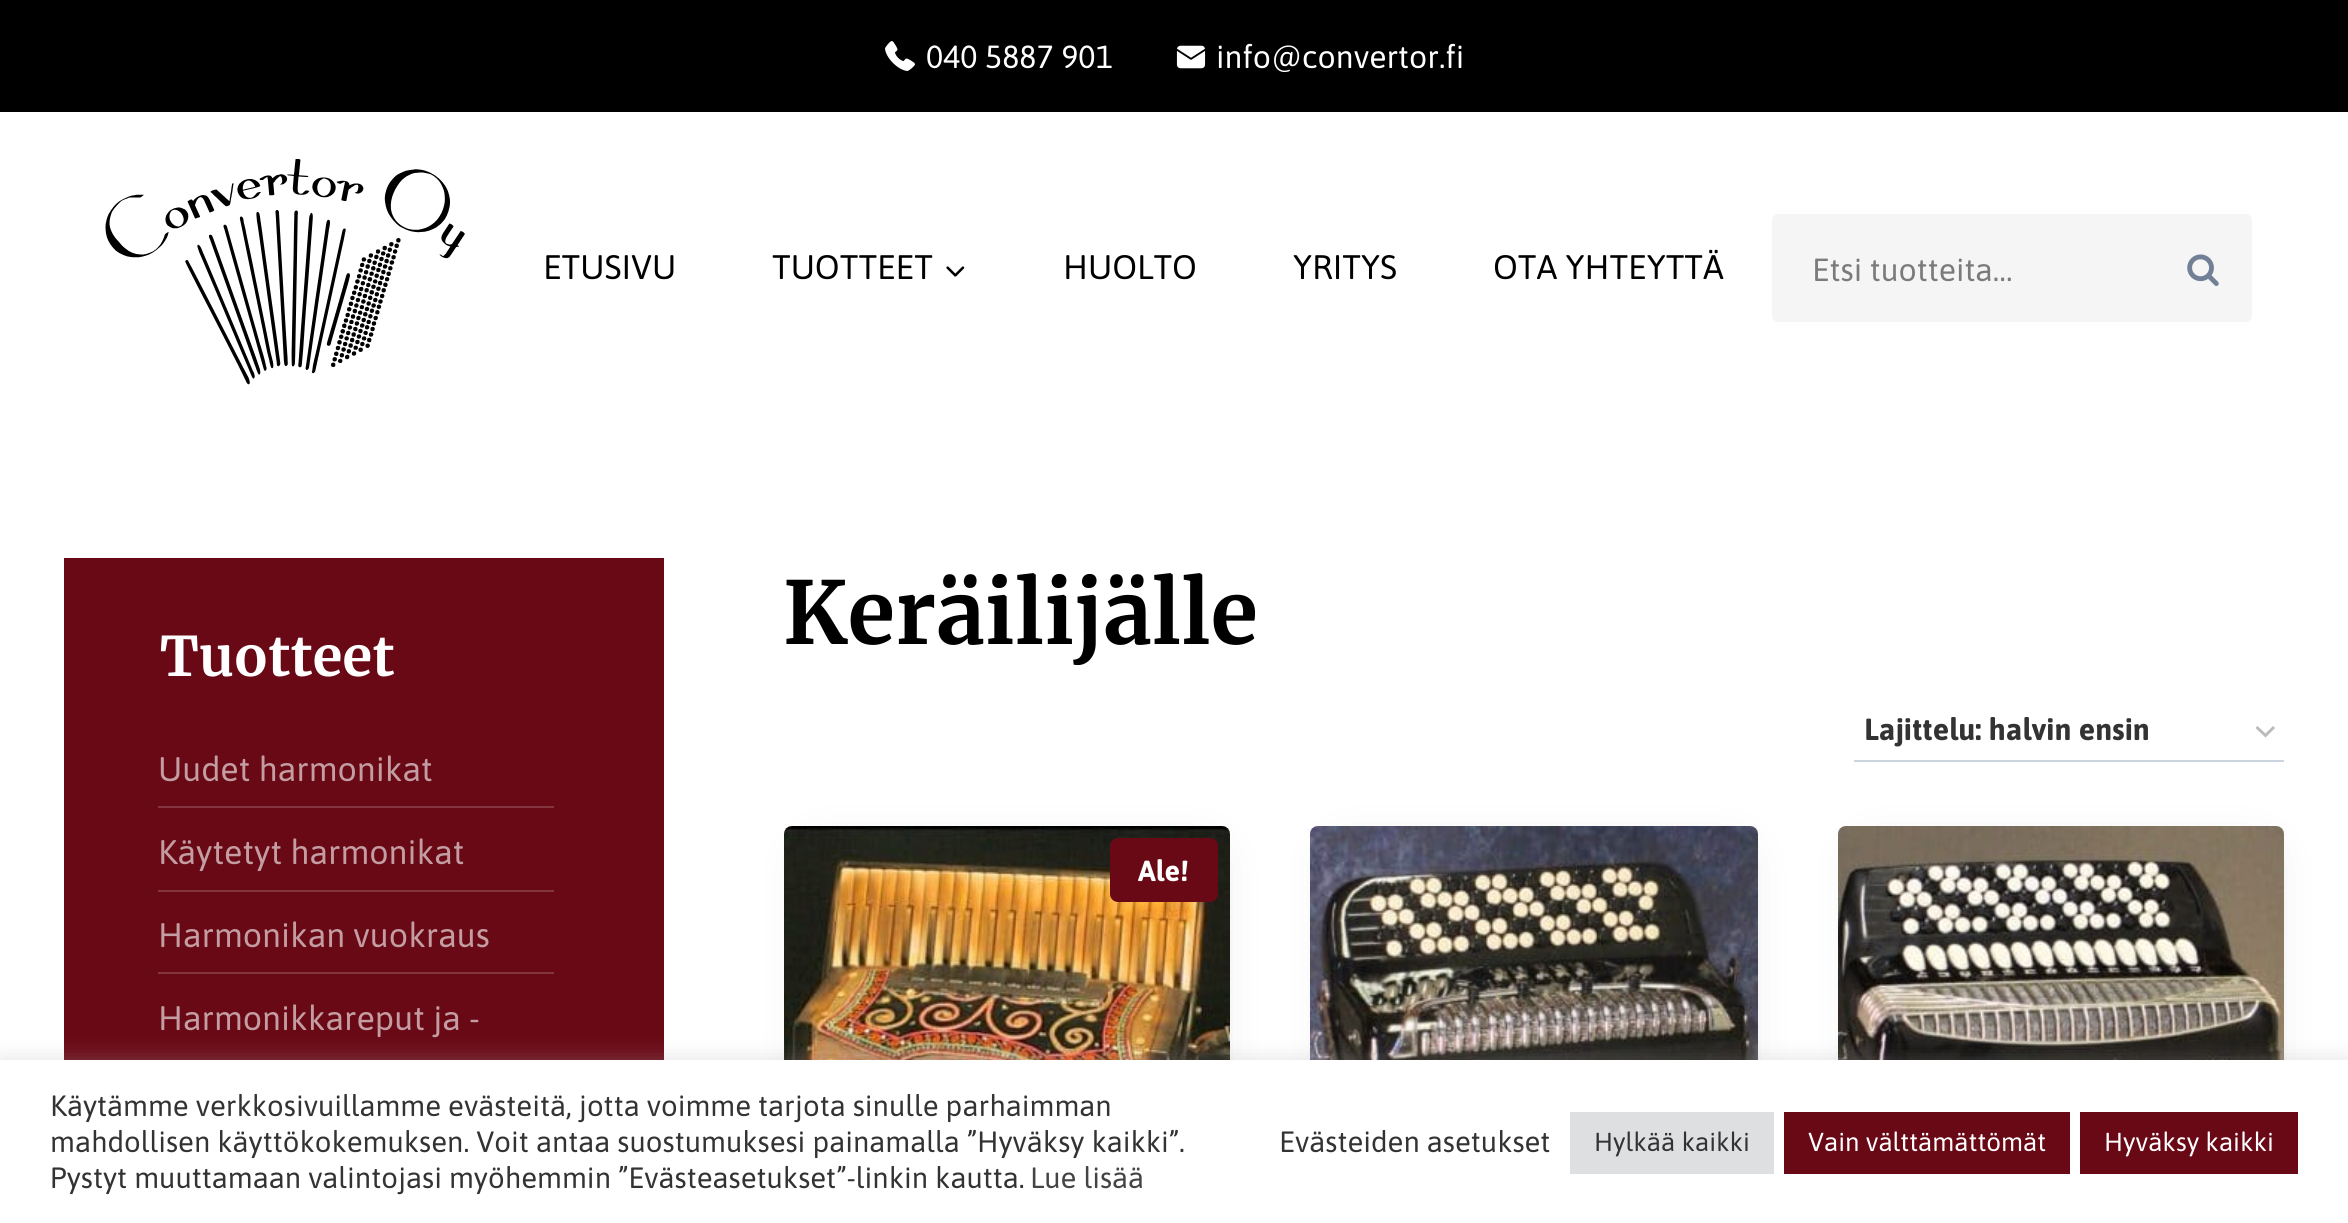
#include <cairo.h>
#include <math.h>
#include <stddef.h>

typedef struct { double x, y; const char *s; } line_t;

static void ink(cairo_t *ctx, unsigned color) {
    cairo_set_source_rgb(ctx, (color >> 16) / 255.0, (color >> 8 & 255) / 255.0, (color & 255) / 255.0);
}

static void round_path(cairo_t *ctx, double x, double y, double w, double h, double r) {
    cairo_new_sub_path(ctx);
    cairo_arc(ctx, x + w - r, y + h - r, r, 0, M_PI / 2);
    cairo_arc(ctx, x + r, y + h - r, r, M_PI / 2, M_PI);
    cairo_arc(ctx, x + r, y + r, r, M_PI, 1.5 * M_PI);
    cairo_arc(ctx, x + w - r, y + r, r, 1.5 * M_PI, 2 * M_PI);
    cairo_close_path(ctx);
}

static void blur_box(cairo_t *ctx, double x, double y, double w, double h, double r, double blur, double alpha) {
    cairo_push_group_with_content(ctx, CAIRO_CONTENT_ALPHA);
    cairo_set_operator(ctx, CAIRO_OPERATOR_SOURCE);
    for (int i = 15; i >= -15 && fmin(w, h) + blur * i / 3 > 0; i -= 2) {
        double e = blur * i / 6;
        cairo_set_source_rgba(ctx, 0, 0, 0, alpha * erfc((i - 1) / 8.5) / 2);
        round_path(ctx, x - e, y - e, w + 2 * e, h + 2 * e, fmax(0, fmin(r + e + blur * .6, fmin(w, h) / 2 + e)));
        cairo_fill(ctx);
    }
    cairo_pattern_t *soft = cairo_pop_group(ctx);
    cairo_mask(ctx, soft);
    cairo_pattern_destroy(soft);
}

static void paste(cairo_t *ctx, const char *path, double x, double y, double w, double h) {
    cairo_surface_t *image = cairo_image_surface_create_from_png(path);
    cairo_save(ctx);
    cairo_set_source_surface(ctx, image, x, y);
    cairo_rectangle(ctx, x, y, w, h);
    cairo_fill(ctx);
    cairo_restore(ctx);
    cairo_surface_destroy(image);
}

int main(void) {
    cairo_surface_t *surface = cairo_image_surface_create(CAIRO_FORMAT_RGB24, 2348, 1223);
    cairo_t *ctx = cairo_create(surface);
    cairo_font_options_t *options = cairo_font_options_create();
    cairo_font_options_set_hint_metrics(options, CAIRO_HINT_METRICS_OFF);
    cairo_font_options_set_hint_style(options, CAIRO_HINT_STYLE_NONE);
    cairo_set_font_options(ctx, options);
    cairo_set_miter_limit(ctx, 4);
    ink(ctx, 0xFFFFFF);
    cairo_paint(ctx);
    ink(ctx, 0x000000);
    cairo_rectangle(ctx, 0, 0, 2348, 112);
    cairo_fill(ctx);
    paste(ctx, "media/1.png", 885, 41, 30, 30);
    cairo_select_font_face(ctx, "Asap", CAIRO_FONT_SLANT_NORMAL, CAIRO_FONT_WEIGHT_NORMAL);
    cairo_set_font_size(ctx, 32);
    ink(ctx, 0xFFFFFF);
    cairo_move_to(ctx, 926, 68);
    cairo_show_text(ctx, "040 5887 901");
    paste(ctx, "media/2.png", 1176, 45, 30, 24);
    cairo_move_to(ctx, 1216, 68);
    cairo_show_text(ctx, "info@convertor.fi");
    paste(ctx, "media/3.png", 105, 159, 360, 226);
    cairo_set_font_size(ctx, 34);
    ink(ctx, 0x000000);
    cairo_move_to(ctx, 543, 279);
    cairo_show_text(ctx, "ETUSIVU");
    cairo_move_to(ctx, 772, 279);
    cairo_show_text(ctx, "TUOTTEET");
    paste(ctx, "media/4.png", 946, 266, 19, 11);
    {
        static const line_t items[] = {
            {1063, 279, "HUOLTO"},
            {1293, 279, "YRITYS"},
            {1493, 279, "OTA YHTEYTTÄ"},
        };
        for (size_t i = 0; i < sizeof items / sizeof *items; i++) {
            cairo_move_to(ctx, items[i].x, items[i].y);
            cairo_show_text(ctx, items[i].s);
        }
    }
    ink(ctx, 0xF5F5F5);
    round_path(ctx, 1772, 214, 480, 108, 6);
    cairo_fill(ctx);
    cairo_set_font_size(ctx, 32);
    ink(ctx, 0x7B7B7B);
    cairo_move_to(ctx, 1812, 281);
    cairo_show_text(ctx, "Etsi tuotteita…");
    paste(ctx, "media/5.png", 2187, 254, 32, 32);
    ink(ctx, 0x690916);
    cairo_rectangle(ctx, 64, 558, 600, 502);
    cairo_fill(ctx);
    cairo_select_font_face(ctx, "Merriweather", CAIRO_FONT_SLANT_NORMAL, CAIRO_FONT_WEIGHT_BOLD);
    cairo_set_font_size(ctx, 54.5);
    ink(ctx, 0xFFFFFF);
    cairo_move_to(ctx, 160, 676);
    cairo_show_text(ctx, "Tuotteet");
    ink(ctx, 0x843540);
    cairo_rectangle(ctx, 158, 806, 396, 2);
    cairo_fill(ctx);
    cairo_select_font_face(ctx, "Asap", CAIRO_FONT_SLANT_NORMAL, CAIRO_FONT_WEIGHT_NORMAL);
    cairo_set_font_size(ctx, 34);
    ink(ctx, 0xC39DA2);
    cairo_move_to(ctx, 158, 781);
    cairo_show_text(ctx, "Uudet harmonikat");
    ink(ctx, 0x843540);
    cairo_rectangle(ctx, 158, 890, 396, 2);
    cairo_fill(ctx);
    ink(ctx, 0xC39DA2);
    cairo_move_to(ctx, 158, 864);
    cairo_show_text(ctx, "Käytetyt harmonikat");
    ink(ctx, 0x843540);
    cairo_rectangle(ctx, 158, 972, 396, 2);
    cairo_fill(ctx);
    ink(ctx, 0xC39DA2);
    cairo_move_to(ctx, 158, 947);
    cairo_show_text(ctx, "Harmonikan vuokraus");
    cairo_move_to(ctx, 158, 1030);
    cairo_show_text(ctx, "Harmonikkareput ja -");
    cairo_select_font_face(ctx, "Merriweather", CAIRO_FONT_SLANT_NORMAL, CAIRO_FONT_WEIGHT_BOLD);
    cairo_set_font_size(ctx, 86.5);
    ink(ctx, 0x000000);
    cairo_move_to(ctx, 783, 644);
    cairo_show_text(ctx, "Keräilijälle");
    cairo_new_path(ctx);
    cairo_move_to(ctx, 2256.5, 727);
    cairo_line_to(ctx, 2265.5, 735.5);
    cairo_line_to(ctx, 2274, 727);
    ink(ctx, 0xBBBBBB);
    cairo_set_line_width(ctx, 2.9);
    cairo_stroke(ctx);
    ink(ctx, 0xCBD5E0);
    cairo_rectangle(ctx, 1854, 760, 430, 2);
    cairo_fill(ctx);
    cairo_select_font_face(ctx, "Asap", CAIRO_FONT_SLANT_NORMAL, CAIRO_FONT_WEIGHT_BOLD);
    cairo_set_font_size(ctx, 30.5);
    ink(ctx, 0x333333);
    cairo_move_to(ctx, 1864, 740);
    cairo_show_text(ctx, "Lajittelu: halvin ensin");
    ink(ctx, 0x000000);
    blur_box(ctx, 818, 860, 386, 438, 0, 25, 0.2);
    paste(ctx, "media/6.png", 784, 826, 446, 234);
    ink(ctx, 0x690916);
    round_path(ctx, 1110, 838, 108, 64, 8);
    cairo_fill(ctx);
    cairo_set_font_size(ctx, 29);
    ink(ctx, 0xFFFFFF);
    cairo_move_to(ctx, 1138, 881);
    cairo_show_text(ctx, "Ale!");
    ink(ctx, 0x000000);
    blur_box(ctx, 1344, 860, 388, 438, 0, 25, 0.2);
    paste(ctx, "media/7.png", 1310, 826, 448, 234);
    blur_box(ctx, 1872, 860, 386, 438, 0, 25, 0.2);
    paste(ctx, "media/8.png", 1838, 826, 446, 234);
    ink(ctx, 0xACABAB);
    blur_box(ctx, 0, 1058, 2348, 164, 0, 10, 0.3);
    ink(ctx, 0xFFFFFF);
    cairo_rectangle(ctx, 0, 1060, 2348, 163);
    cairo_fill(ctx);
    cairo_select_font_face(ctx, "Asap", CAIRO_FONT_SLANT_NORMAL, CAIRO_FONT_WEIGHT_NORMAL);
    cairo_set_font_size(ctx, 29.35);
    ink(ctx, 0x333333);
    {
        static const line_t items[] = {
            {50, 1116, "Käytämme verkkosivuillamme evästeitä, jotta voimme tarjota sinulle parhaimman"},
            {50, 1152, "mahdollisen käyttökokemuksen. Voit antaa suostumuksesi painamalla ”Hyväksy kaikki”."},
            {50, 1188, "Pystyt muuttamaan valintojasi myöhemmin ”Evästeasetukset”-linkin kautta."},
        };
        for (size_t i = 0; i < sizeof items / sizeof *items; i++) {
            cairo_move_to(ctx, items[i].x, items[i].y);
            cairo_show_text(ctx, items[i].s);
        }
    }
    ink(ctx, 0x444444);
    cairo_move_to(ctx, 1030, 1188);
    cairo_show_text(ctx, "Lue lisää");
    ink(ctx, 0x333333);
    cairo_move_to(ctx, 1279, 1152);
    cairo_show_text(ctx, "Evästeiden asetukset");
    ink(ctx, 0xDEDFE0);
    cairo_rectangle(ctx, 1570, 1112, 204, 62);
    cairo_fill(ctx);
    cairo_set_font_size(ctx, 26);
    ink(ctx, 0x333333);
    cairo_move_to(ctx, 1594, 1151);
    cairo_show_text(ctx, "Hylkää kaikki");
    ink(ctx, 0x690916);
    cairo_rectangle(ctx, 1784, 1112, 286, 62);
    cairo_fill(ctx);
    ink(ctx, 0xFFFFFF);
    cairo_move_to(ctx, 1808, 1151);
    cairo_show_text(ctx, "Vain välttämättömät");
    ink(ctx, 0x690916);
    cairo_rectangle(ctx, 2080, 1112, 218, 62);
    cairo_fill(ctx);
    ink(ctx, 0xFFFFFF);
    cairo_move_to(ctx, 2104, 1151);
    cairo_show_text(ctx, "Hyväksy kaikki");
    cairo_surface_write_to_png(surface, "image.png");
    cairo_font_options_destroy(options);
    cairo_destroy(ctx);
    cairo_surface_destroy(surface);
    return 0;
}
